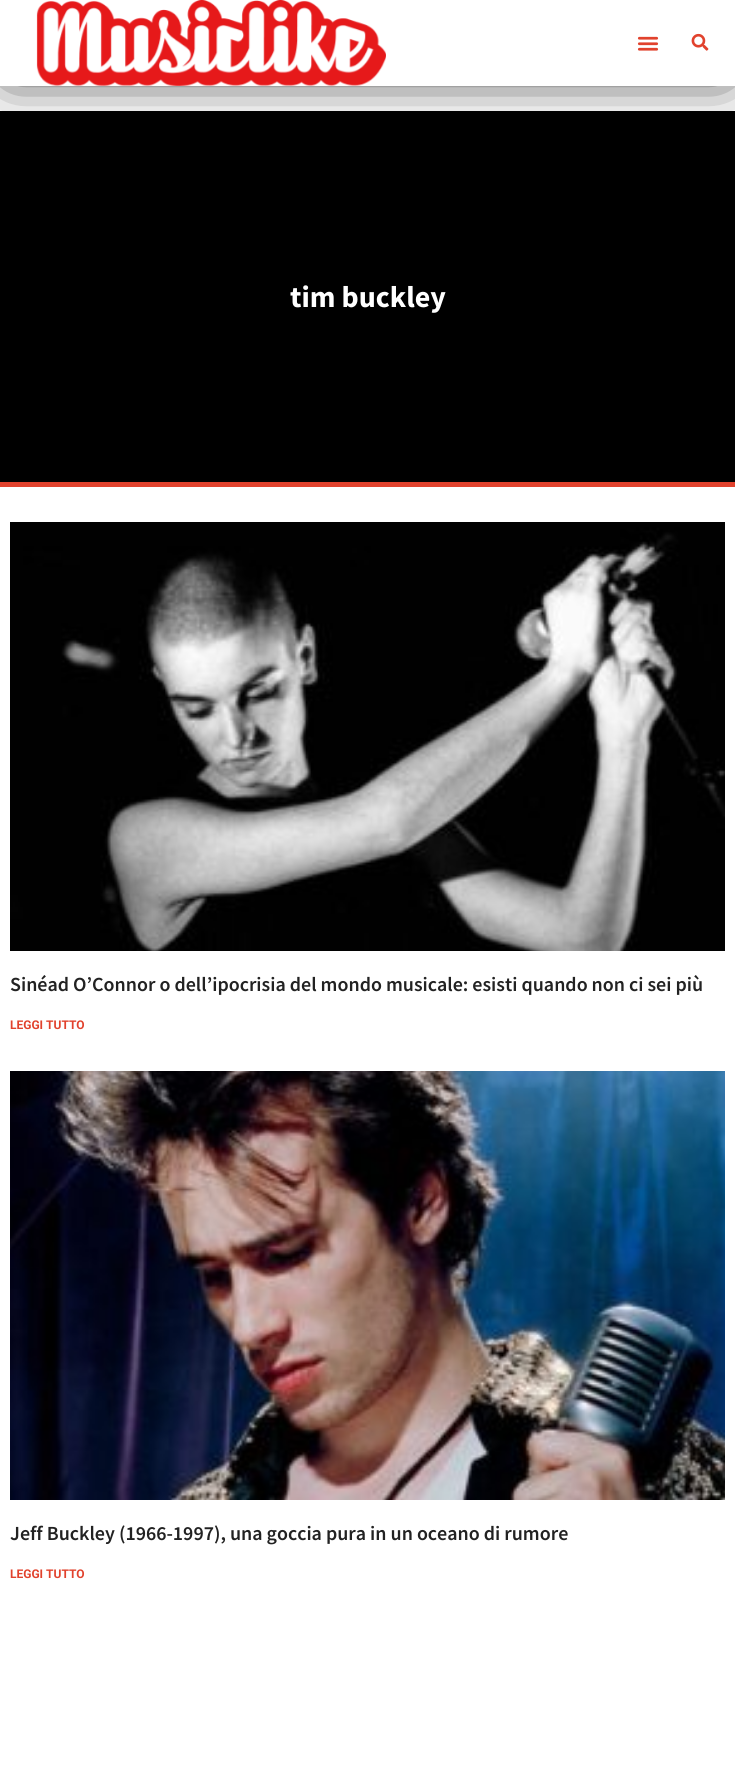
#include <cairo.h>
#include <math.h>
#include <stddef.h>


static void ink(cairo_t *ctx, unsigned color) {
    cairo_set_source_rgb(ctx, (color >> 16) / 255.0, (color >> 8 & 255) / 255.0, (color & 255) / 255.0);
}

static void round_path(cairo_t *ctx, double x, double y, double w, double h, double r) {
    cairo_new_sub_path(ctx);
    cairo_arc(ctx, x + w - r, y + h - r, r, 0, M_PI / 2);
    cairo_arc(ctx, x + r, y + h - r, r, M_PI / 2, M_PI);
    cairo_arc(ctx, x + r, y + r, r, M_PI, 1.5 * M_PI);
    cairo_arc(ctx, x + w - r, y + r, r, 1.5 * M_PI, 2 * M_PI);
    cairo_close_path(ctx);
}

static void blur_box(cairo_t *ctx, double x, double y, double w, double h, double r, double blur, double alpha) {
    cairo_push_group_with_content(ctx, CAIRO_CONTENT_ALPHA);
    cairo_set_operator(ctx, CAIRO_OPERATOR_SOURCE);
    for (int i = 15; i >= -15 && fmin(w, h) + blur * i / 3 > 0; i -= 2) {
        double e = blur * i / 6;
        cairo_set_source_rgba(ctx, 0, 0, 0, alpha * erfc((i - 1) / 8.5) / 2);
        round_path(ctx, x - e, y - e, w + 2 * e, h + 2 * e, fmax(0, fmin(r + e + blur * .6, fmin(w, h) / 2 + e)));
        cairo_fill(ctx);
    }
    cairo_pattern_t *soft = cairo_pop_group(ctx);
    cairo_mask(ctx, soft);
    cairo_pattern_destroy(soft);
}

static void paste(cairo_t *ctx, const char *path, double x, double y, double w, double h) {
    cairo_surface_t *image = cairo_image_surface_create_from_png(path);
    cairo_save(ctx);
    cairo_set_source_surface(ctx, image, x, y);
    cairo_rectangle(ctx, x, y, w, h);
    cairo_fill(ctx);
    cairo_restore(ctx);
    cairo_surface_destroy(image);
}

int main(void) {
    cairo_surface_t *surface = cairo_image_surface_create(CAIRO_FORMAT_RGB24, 735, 1768);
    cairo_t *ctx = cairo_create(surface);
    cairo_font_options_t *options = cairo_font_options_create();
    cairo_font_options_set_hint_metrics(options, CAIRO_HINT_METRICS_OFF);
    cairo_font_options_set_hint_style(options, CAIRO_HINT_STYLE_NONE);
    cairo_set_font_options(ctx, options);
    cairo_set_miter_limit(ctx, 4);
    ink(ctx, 0xFFFFFF);
    cairo_paint(ctx);
    ink(ctx, 0x000000);
    cairo_rectangle(ctx, 0, 111, 735, 371);
    cairo_fill(ctx);
    cairo_save(ctx);
    cairo_rectangle(ctx, 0, 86, 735, 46);
    cairo_clip(ctx);
    ink(ctx, 0x000000);
    blur_box(ctx, 9, 5, 717, 68, 0, 28.5, 1);
    cairo_restore(ctx);
    paste(ctx, "media/1.png", 36, 0, 350, 86);
    paste(ctx, "media/2.png", 637, 36, 22, 15);
    paste(ctx, "media/3.png", 691, 33, 18, 18);
    ink(ctx, 0xE1422D);
    cairo_rectangle(ctx, 0, 482, 735, 5);
    cairo_fill(ctx);
    cairo_select_font_face(ctx, "Source Sans Pro", CAIRO_FONT_SLANT_NORMAL, CAIRO_FONT_WEIGHT_BOLD);
    cairo_set_font_size(ctx, 30);
    ink(ctx, 0xFFFFFF);
    cairo_move_to(ctx, 290, 307);
    cairo_show_text(ctx, "tim buckley");
    paste(ctx, "media/4.png", 10, 522, 715, 429);
    cairo_select_font_face(ctx, "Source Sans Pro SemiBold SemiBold", CAIRO_FONT_SLANT_NORMAL, CAIRO_FONT_WEIGHT_NORMAL);
    cairo_set_font_size(ctx, 20);
    ink(ctx, 0x222222);
    cairo_move_to(ctx, 10, 991);
    cairo_show_text(ctx, "Sinéad O’Connor o dell’ipocrisia del mondo musicale: esisti quando non ci sei più");
    cairo_select_font_face(ctx, "Roboto", CAIRO_FONT_SLANT_NORMAL, CAIRO_FONT_WEIGHT_BOLD);
    cairo_set_font_size(ctx, 12);
    ink(ctx, 0xE1422D);
    cairo_move_to(ctx, 10, 1029);
    cairo_show_text(ctx, "LEGGI TUTTO");
    paste(ctx, "media/5.png", 10, 1071, 715, 429);
    cairo_select_font_face(ctx, "Source Sans Pro SemiBold SemiBold", CAIRO_FONT_SLANT_NORMAL, CAIRO_FONT_WEIGHT_NORMAL);
    cairo_set_font_size(ctx, 20);
    ink(ctx, 0x222222);
    cairo_move_to(ctx, 10, 1540);
    cairo_show_text(ctx, "Jeff Buckley (1966-1997), una goccia pura in un oceano di rumore");
    cairo_select_font_face(ctx, "Roboto", CAIRO_FONT_SLANT_NORMAL, CAIRO_FONT_WEIGHT_BOLD);
    cairo_set_font_size(ctx, 12);
    ink(ctx, 0xE1422D);
    cairo_move_to(ctx, 10, 1578);
    cairo_show_text(ctx, "LEGGI TUTTO");
    cairo_surface_write_to_png(surface, "image.png");
    cairo_font_options_destroy(options);
    cairo_destroy(ctx);
    cairo_surface_destroy(surface);
    return 0;
}
